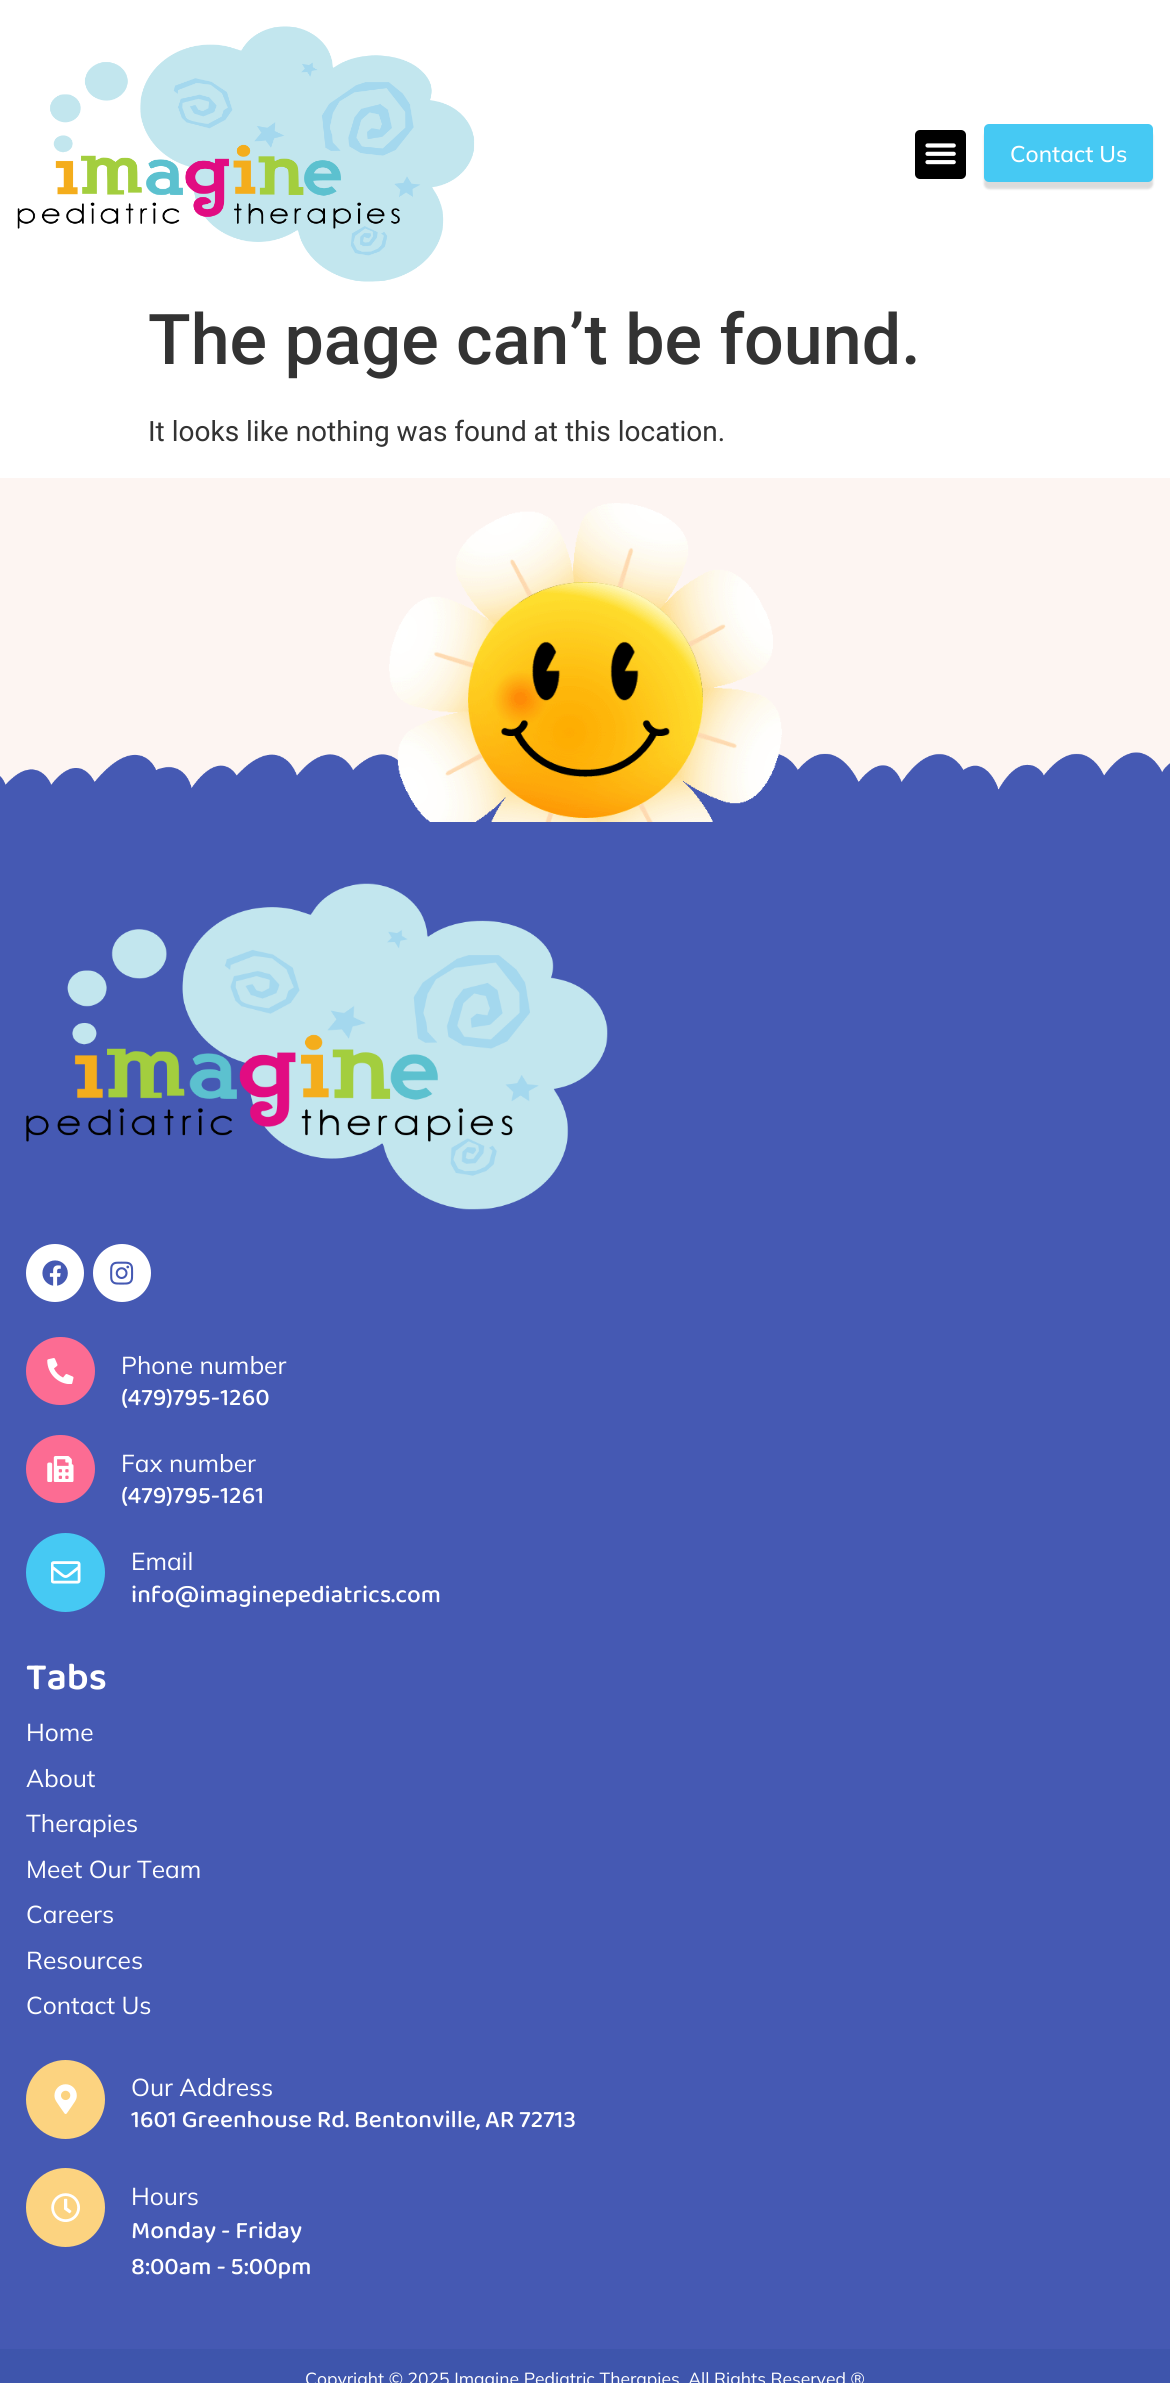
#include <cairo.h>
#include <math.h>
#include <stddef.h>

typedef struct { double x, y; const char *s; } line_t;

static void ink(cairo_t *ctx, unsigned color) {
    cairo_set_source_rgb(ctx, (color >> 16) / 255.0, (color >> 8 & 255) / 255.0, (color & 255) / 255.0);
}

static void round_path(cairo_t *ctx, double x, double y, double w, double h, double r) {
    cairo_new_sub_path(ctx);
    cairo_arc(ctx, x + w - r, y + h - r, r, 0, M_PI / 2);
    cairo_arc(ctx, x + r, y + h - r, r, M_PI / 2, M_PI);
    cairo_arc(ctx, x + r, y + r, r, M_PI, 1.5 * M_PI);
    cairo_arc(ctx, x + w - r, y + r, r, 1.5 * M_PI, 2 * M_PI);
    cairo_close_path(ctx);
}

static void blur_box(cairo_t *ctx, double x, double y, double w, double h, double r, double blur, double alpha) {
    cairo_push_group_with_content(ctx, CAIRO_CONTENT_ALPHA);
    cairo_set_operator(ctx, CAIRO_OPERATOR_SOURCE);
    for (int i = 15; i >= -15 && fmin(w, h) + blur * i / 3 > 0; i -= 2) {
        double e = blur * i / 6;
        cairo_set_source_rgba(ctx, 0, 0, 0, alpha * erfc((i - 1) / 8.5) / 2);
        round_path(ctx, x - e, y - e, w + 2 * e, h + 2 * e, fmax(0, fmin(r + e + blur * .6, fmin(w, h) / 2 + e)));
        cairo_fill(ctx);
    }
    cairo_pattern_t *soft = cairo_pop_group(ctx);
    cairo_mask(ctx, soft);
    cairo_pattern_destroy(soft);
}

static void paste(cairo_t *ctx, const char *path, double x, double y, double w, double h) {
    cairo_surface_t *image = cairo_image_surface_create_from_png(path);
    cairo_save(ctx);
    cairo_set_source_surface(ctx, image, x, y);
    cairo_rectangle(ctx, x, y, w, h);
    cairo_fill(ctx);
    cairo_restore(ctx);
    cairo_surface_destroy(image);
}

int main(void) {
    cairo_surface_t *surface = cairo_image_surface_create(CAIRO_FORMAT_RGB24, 1170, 2383);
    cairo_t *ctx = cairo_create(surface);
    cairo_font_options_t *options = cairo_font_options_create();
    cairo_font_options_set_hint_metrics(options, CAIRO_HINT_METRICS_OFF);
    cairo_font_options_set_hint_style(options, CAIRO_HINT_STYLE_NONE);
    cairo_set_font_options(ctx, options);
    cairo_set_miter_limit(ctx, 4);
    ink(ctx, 0xFFFFFF);
    cairo_paint(ctx);
    paste(ctx, "media/1.png", 17, 26, 458, 256);
    ink(ctx, 0x000000);
    round_path(ctx, 915, 130, 51, 49, 5);
    cairo_fill(ctx);
    paste(ctx, "media/2.png", 925, 143, 31, 22);
    ink(ctx, 0x0C0D0E);
    blur_box(ctx, 984, 131, 169, 58, 5, 1, 0.15);
    ink(ctx, 0x46C9F3);
    round_path(ctx, 984, 124, 169, 58, 5);
    cairo_fill(ctx);
    cairo_select_font_face(ctx, "Mulish Medium", CAIRO_FONT_SLANT_NORMAL, CAIRO_FONT_WEIGHT_NORMAL);
    cairo_set_font_size(ctx, 22.75);
    ink(ctx, 0xFFFFFF);
    cairo_move_to(ctx, 1010, 162);
    cairo_show_text(ctx, "Contact Us");
    cairo_select_font_face(ctx, "Roboto Medium", CAIRO_FONT_SLANT_NORMAL, CAIRO_FONT_WEIGHT_NORMAL);
    cairo_set_font_size(ctx, 70);
    ink(ctx, 0x333333);
    cairo_move_to(ctx, 148, 364);
    cairo_show_text(ctx, "The page can’t be found.");
    cairo_select_font_face(ctx, "Roboto", CAIRO_FONT_SLANT_NORMAL, CAIRO_FONT_WEIGHT_NORMAL);
    cairo_set_font_size(ctx, 28);
    cairo_move_to(ctx, 148, 441);
    cairo_show_text(ctx, "It looks like nothing was found at this location.");
    ink(ctx, 0xFDF5F2);
    cairo_rectangle(ctx, 0, 478, 1170, 312);
    cairo_fill(ctx);
    paste(ctx, "media/3.png", 0, 752, 1170, 70);
    paste(ctx, "media/4.png", 389, 503, 393, 319);
    ink(ctx, 0x4559B3);
    cairo_rectangle(ctx, 0, 822, 1170, 1527);
    cairo_fill(ctx);
    paste(ctx, "media/5.png", 26, 883, 582, 327);
    ink(ctx, 0xFFFFFF);
    cairo_arc(ctx, 55, 1273, 29, 0, 2 * M_PI);
    cairo_fill(ctx);
    paste(ctx, "media/6.png", 42, 1260, 26, 26);
    cairo_arc(ctx, 122, 1273, 29, 0, 2 * M_PI);
    cairo_fill(ctx);
    paste(ctx, "media/7.png", 110, 1261, 24, 24);
    ink(ctx, 0xFC6C93);
    round_path(ctx, 26, 1337, 69, 68, 34);
    cairo_fill(ctx);
    paste(ctx, "media/8.png", 47, 1358, 27, 26);
    cairo_select_font_face(ctx, "Mulish", CAIRO_FONT_SLANT_NORMAL, CAIRO_FONT_WEIGHT_NORMAL);
    cairo_set_font_size(ctx, 24.5);
    ink(ctx, 0xFFFFFF);
    cairo_move_to(ctx, 121, 1374);
    cairo_show_text(ctx, "Phone number");
    cairo_select_font_face(ctx, "Baloo 2 Medium", CAIRO_FONT_SLANT_NORMAL, CAIRO_FONT_WEIGHT_NORMAL);
    cairo_move_to(ctx, 121, 1405);
    cairo_show_text(ctx, "(479)795-1260");
    ink(ctx, 0xFC6C93);
    round_path(ctx, 26, 1435, 69, 68, 34);
    cairo_fill(ctx);
    paste(ctx, "media/9.png", 47, 1456, 27, 26);
    cairo_select_font_face(ctx, "Mulish", CAIRO_FONT_SLANT_NORMAL, CAIRO_FONT_WEIGHT_NORMAL);
    ink(ctx, 0xFFFFFF);
    cairo_move_to(ctx, 121, 1472);
    cairo_show_text(ctx, "Fax number");
    cairo_select_font_face(ctx, "Baloo 2 Medium", CAIRO_FONT_SLANT_NORMAL, CAIRO_FONT_WEIGHT_NORMAL);
    cairo_move_to(ctx, 121, 1503);
    cairo_show_text(ctx, "(479)795-1261");
    ink(ctx, 0x46C9F3);
    cairo_new_path(ctx);
    cairo_arc(ctx, 65.5, 1572.5, 39.5, 0, 2 * M_PI);
    cairo_fill(ctx);
    paste(ctx, "media/10.png", 51, 1561, 30, 23);
    cairo_select_font_face(ctx, "Mulish", CAIRO_FONT_SLANT_NORMAL, CAIRO_FONT_WEIGHT_NORMAL);
    ink(ctx, 0xFFFFFF);
    cairo_move_to(ctx, 131, 1570);
    cairo_show_text(ctx, "Email");
    cairo_select_font_face(ctx, "Baloo 2 Medium", CAIRO_FONT_SLANT_NORMAL, CAIRO_FONT_WEIGHT_NORMAL);
    cairo_move_to(ctx, 131, 1602);
    cairo_show_text(ctx, "info@imaginepediatrics.com");
    cairo_select_font_face(ctx, "Baloo 2 SemiBold", CAIRO_FONT_SLANT_NORMAL, CAIRO_FONT_WEIGHT_NORMAL);
    cairo_set_font_size(ctx, 38.5);
    cairo_move_to(ctx, 26, 1689);
    cairo_show_text(ctx, "Tabs");
    cairo_select_font_face(ctx, "Mulish", CAIRO_FONT_SLANT_NORMAL, CAIRO_FONT_WEIGHT_NORMAL);
    cairo_set_font_size(ctx, 24.5);
    {
        static const line_t items[] = {
            {26, 1741, "Home"},
            {26, 1787, "About"},
            {26, 1832, "Therapies"},
            {26, 1878, "Meet Our Team"},
            {26, 1923, "Careers"},
            {26, 1969, "Resources"},
            {26, 2014, "Contact Us"},
        };
        for (size_t i = 0; i < sizeof items / sizeof *items; i++) {
            cairo_move_to(ctx, items[i].x, items[i].y);
            cairo_show_text(ctx, items[i].s);
        }
    }
    ink(ctx, 0xFCD380);
    cairo_new_path(ctx);
    cairo_arc(ctx, 65.5, 2099.5, 39.5, 0, 2 * M_PI);
    cairo_fill(ctx);
    paste(ctx, "media/11.png", 54, 2084, 23, 30);
    ink(ctx, 0xFFFFFF);
    cairo_move_to(ctx, 131, 2096);
    cairo_show_text(ctx, "Our Address");
    cairo_select_font_face(ctx, "Baloo 2 Medium", CAIRO_FONT_SLANT_NORMAL, CAIRO_FONT_WEIGHT_NORMAL);
    cairo_move_to(ctx, 131, 2127);
    cairo_show_text(ctx, "1601 Greenhouse Rd. Bentonville, AR 72713");
    ink(ctx, 0xFCD380);
    cairo_new_path(ctx);
    cairo_arc(ctx, 65.5, 2207.5, 39.5, 0, 2 * M_PI);
    cairo_fill(ctx);
    paste(ctx, "media/12.png", 51, 2193, 29, 29);
    cairo_select_font_face(ctx, "Mulish", CAIRO_FONT_SLANT_NORMAL, CAIRO_FONT_WEIGHT_NORMAL);
    ink(ctx, 0xFFFFFF);
    cairo_move_to(ctx, 131, 2205);
    cairo_show_text(ctx, "Hours");
    cairo_select_font_face(ctx, "Baloo 2 Medium", CAIRO_FONT_SLANT_NORMAL, CAIRO_FONT_WEIGHT_NORMAL);
    cairo_move_to(ctx, 131, 2238);
    cairo_show_text(ctx, "Monday - Friday");
    cairo_move_to(ctx, 131, 2274);
    cairo_show_text(ctx, "8:00am - 5:00pm");
    ink(ctx, 0x3E55AC);
    cairo_rectangle(ctx, 0, 2349, 1170, 34);
    cairo_fill(ctx);
    cairo_select_font_face(ctx, "Mulish", CAIRO_FONT_SLANT_NORMAL, CAIRO_FONT_WEIGHT_NORMAL);
    cairo_set_font_size(ctx, 17.5);
    ink(ctx, 0xFFFFFF);
    cairo_move_to(ctx, 305, 2385);
    cairo_show_text(ctx, "Copyright © 2025 Imagine Pediatric Therapies. All Rights Reserved ®");
    cairo_surface_write_to_png(surface, "image.png");
    cairo_font_options_destroy(options);
    cairo_destroy(ctx);
    cairo_surface_destroy(surface);
    return 0;
}
